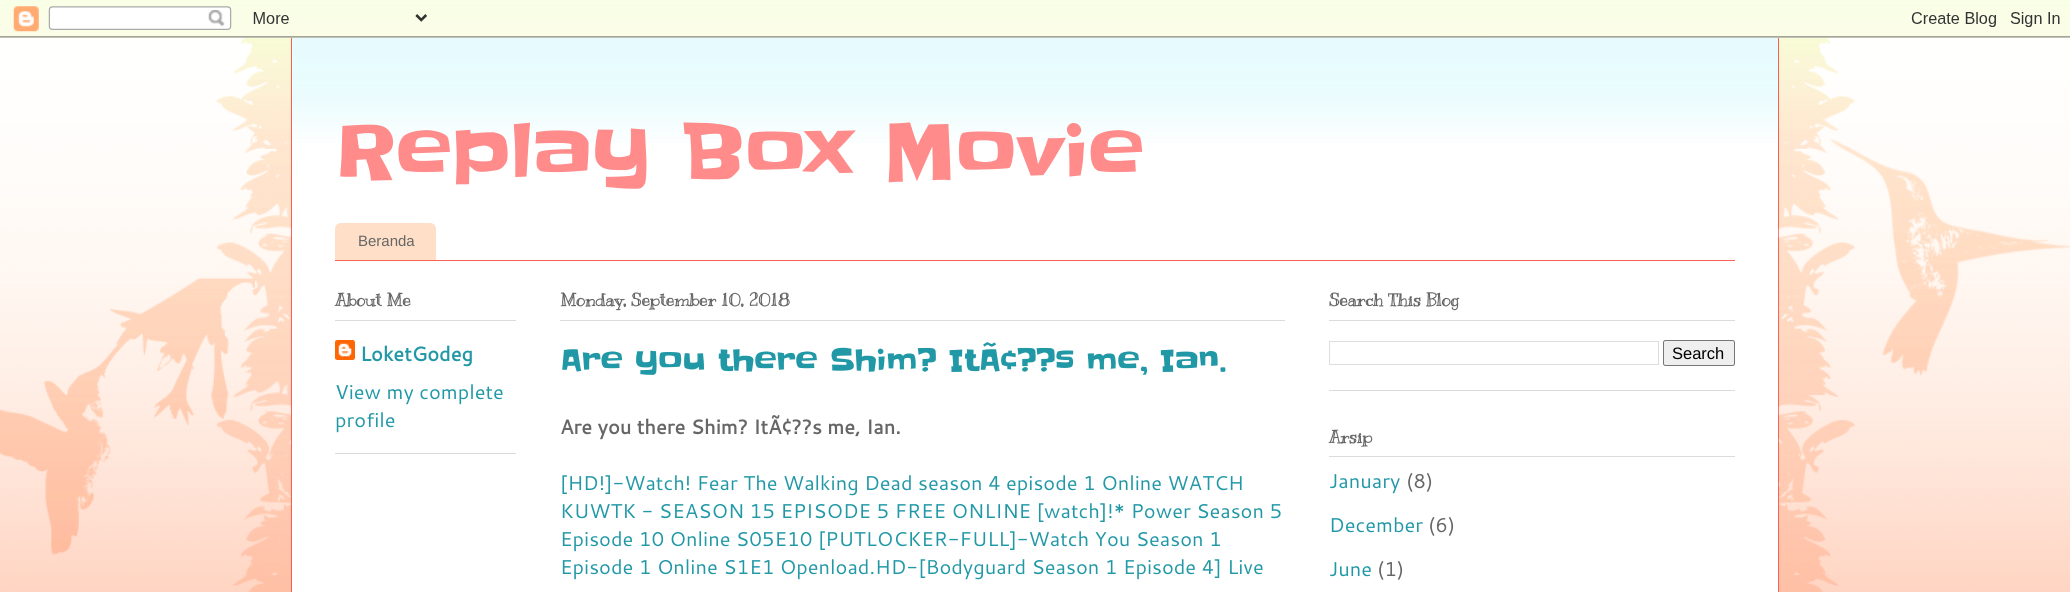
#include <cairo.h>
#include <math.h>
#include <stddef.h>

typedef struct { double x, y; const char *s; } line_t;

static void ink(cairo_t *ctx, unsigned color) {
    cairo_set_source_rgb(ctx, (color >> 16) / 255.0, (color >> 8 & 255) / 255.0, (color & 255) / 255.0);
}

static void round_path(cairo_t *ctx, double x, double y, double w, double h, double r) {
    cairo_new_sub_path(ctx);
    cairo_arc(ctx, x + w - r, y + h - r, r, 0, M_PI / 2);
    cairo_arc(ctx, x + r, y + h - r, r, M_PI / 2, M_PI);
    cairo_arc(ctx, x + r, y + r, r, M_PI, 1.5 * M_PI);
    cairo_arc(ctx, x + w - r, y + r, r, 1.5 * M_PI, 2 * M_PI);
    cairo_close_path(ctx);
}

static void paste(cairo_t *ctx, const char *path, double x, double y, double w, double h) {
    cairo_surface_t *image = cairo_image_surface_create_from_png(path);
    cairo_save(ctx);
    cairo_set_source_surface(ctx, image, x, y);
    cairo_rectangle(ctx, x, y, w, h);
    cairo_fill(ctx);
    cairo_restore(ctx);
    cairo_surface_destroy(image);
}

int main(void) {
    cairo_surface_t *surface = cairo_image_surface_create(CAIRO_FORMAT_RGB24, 2070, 592);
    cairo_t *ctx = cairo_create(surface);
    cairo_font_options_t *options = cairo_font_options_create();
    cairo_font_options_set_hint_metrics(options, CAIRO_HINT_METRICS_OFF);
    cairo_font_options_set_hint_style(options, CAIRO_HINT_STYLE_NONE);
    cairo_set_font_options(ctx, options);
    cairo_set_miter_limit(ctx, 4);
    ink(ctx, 0xFFFFFF);
    cairo_paint(ctx);
    paste(ctx, "media/1.png", 0, 0, 2070, 592);
    paste(ctx, "media/3.png", 0, 37, 1779, 555);
    ink(ctx, 0xFFFFFF);
    cairo_rectangle(ctx, 292, 38, 1486, 554);
    cairo_fill(ctx);
    paste(ctx, "media/4.png", 291, 37, 1488, 106);
    ink(ctx, 0xFB5E53);
    cairo_rectangle(ctx, 1778, 38, 1, 554);
    cairo_fill(ctx);
    paste(ctx, "media/5.png", 1778, 37, 292, 555);
    paste(ctx, "media/2.png", 0, 0, 2070, 38);
    cairo_rectangle(ctx, 291, 38, 1, 554);
    cairo_fill(ctx);
    cairo_select_font_face(ctx, "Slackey", CAIRO_FONT_SLANT_NORMAL, CAIRO_FONT_WEIGHT_NORMAL);
    cairo_set_font_size(ctx, 75);
    ink(ctx, 0xFF8B8B);
    cairo_move_to(ctx, 335, 179);
    cairo_show_text(ctx, "Replay Box Movie");
    ink(ctx, 0xFB5E53);
    cairo_rectangle(ctx, 335, 260, 1400, 1);
    cairo_fill(ctx);
    ink(ctx, 0xFFDFC7);
    cairo_new_path(ctx);
    cairo_move_to(ctx, 341, 223);
    cairo_line_to(ctx, 430, 223);
    cairo_curve_to(ctx, 433.5, 223, 436, 225.5, 436, 229);
    cairo_line_to(ctx, 436, 260);
    cairo_line_to(ctx, 335, 260);
    cairo_line_to(ctx, 335, 229);
    cairo_curve_to(ctx, 335, 225.5, 337.5, 223, 341, 223);
    cairo_close_path(ctx);
    cairo_fill(ctx);
    cairo_select_font_face(ctx, "Liberation Sans", CAIRO_FONT_SLANT_NORMAL, CAIRO_FONT_WEIGHT_NORMAL);
    cairo_set_font_size(ctx, 15);
    ink(ctx, 0x666666);
    cairo_move_to(ctx, 358, 246);
    cairo_show_text(ctx, "Beranda");
    ink(ctx, 0xDBDBDB);
    cairo_rectangle(ctx, 335, 453, 181, 1);
    cairo_fill(ctx);
    cairo_rectangle(ctx, 335, 320, 181, 1);
    cairo_fill(ctx);
    cairo_select_font_face(ctx, "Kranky", CAIRO_FONT_SLANT_NORMAL, CAIRO_FONT_WEIGHT_BOLD);
    cairo_set_font_size(ctx, 17.5);
    ink(ctx, 0x666666);
    cairo_move_to(ctx, 335, 306);
    cairo_show_text(ctx, "About Me");
    paste(ctx, "media/6.png", 335, 340, 20, 20);
    cairo_select_font_face(ctx, "Cantarell", CAIRO_FONT_SLANT_NORMAL, CAIRO_FONT_WEIGHT_BOLD);
    cairo_set_font_size(ctx, 20);
    ink(ctx, 0x2198A6);
    cairo_move_to(ctx, 360, 361);
    cairo_show_text(ctx, "LoketGodeg");
    cairo_select_font_face(ctx, "Cantarell", CAIRO_FONT_SLANT_NORMAL, CAIRO_FONT_WEIGHT_NORMAL);
    cairo_move_to(ctx, 335, 399);
    cairo_show_text(ctx, "View my complete");
    cairo_move_to(ctx, 335, 427);
    cairo_show_text(ctx, "profile");
    ink(ctx, 0xDBDBDB);
    cairo_rectangle(ctx, 560, 320, 725, 1);
    cairo_fill(ctx);
    cairo_select_font_face(ctx, "Kranky", CAIRO_FONT_SLANT_NORMAL, CAIRO_FONT_WEIGHT_BOLD);
    cairo_set_font_size(ctx, 17.5);
    ink(ctx, 0x666666);
    cairo_move_to(ctx, 560, 306);
    cairo_show_text(ctx, "Monday, September 10, 2018");
    cairo_select_font_face(ctx, "Slackey", CAIRO_FONT_SLANT_NORMAL, CAIRO_FONT_WEIGHT_NORMAL);
    cairo_set_font_size(ctx, 30);
    ink(ctx, 0x2198A6);
    cairo_move_to(ctx, 560, 371);
    cairo_show_text(ctx, "Are you there Shim? ItÃ¢?\077s me, Ian.");
    cairo_select_font_face(ctx, "Cantarell", CAIRO_FONT_SLANT_NORMAL, CAIRO_FONT_WEIGHT_BOLD);
    cairo_set_font_size(ctx, 20);
    ink(ctx, 0x666666);
    cairo_move_to(ctx, 560, 434);
    cairo_show_text(ctx, "Are you there Shim? ItÃ¢?\077s me, Ian.");
    cairo_select_font_face(ctx, "Cantarell", CAIRO_FONT_SLANT_NORMAL, CAIRO_FONT_WEIGHT_NORMAL);
    ink(ctx, 0x2198A6);
    {
        static const line_t items[] = {
            {560, 490, "[HD!]-Watch! Fear The Walking Dead season 4 episode 1 Online WATCH"},
            {560, 518, "KUWTK - SEASON 15 EPISODE 5 FREE ONLINE [watch]!* Power Season 5"},
            {560, 546, "Episode 10 Online S05E10 [PUTLOCKER-FULL]-Watch You Season 1"},
            {560, 574, "Episode 1 Online S1E1 Openload.HD-[Bodyguard Season 1 Episode 4] Live"},
        };
        for (size_t i = 0; i < sizeof items / sizeof *items; i++) {
            cairo_move_to(ctx, items[i].x, items[i].y);
            cairo_show_text(ctx, items[i].s);
        }
    }
    ink(ctx, 0xDBDBDB);
    cairo_rectangle(ctx, 1329, 390, 406, 1);
    cairo_fill(ctx);
    cairo_rectangle(ctx, 1329, 320, 406, 1);
    cairo_fill(ctx);
    cairo_select_font_face(ctx, "Kranky", CAIRO_FONT_SLANT_NORMAL, CAIRO_FONT_WEIGHT_BOLD);
    cairo_set_font_size(ctx, 17.5);
    ink(ctx, 0x666666);
    cairo_move_to(ctx, 1329, 306);
    cairo_show_text(ctx, "Search This Blog");
    cairo_rectangle(ctx, 1329.5, 341.5, 329, 23);
    ink(ctx, 0xDDDDDD);
    cairo_set_line_width(ctx, 1);
    cairo_stroke(ctx);
    ink(ctx, 0xEFEFEF);
    round_path(ctx, 1663.5, 340.5, 71, 25, 2);
    cairo_fill_preserve(ctx);
    ink(ctx, 0x767676);
    cairo_stroke(ctx);
    cairo_select_font_face(ctx, "Liberation Sans", CAIRO_FONT_SLANT_NORMAL, CAIRO_FONT_WEIGHT_NORMAL);
    cairo_set_font_size(ctx, 16.5);
    ink(ctx, 0x000000);
    cairo_move_to(ctx, 1672, 359);
    cairo_show_text(ctx, "Search");
    ink(ctx, 0xDBDBDB);
    cairo_rectangle(ctx, 1329, 456, 406, 1);
    cairo_fill(ctx);
    cairo_select_font_face(ctx, "Kranky", CAIRO_FONT_SLANT_NORMAL, CAIRO_FONT_WEIGHT_BOLD);
    cairo_set_font_size(ctx, 17.5);
    ink(ctx, 0x666666);
    cairo_move_to(ctx, 1329, 443);
    cairo_show_text(ctx, "Arsip");
    cairo_select_font_face(ctx, "Cantarell", CAIRO_FONT_SLANT_NORMAL, CAIRO_FONT_WEIGHT_NORMAL);
    cairo_set_font_size(ctx, 20);
    ink(ctx, 0x2198A6);
    cairo_move_to(ctx, 1329, 488);
    cairo_show_text(ctx, "January");
    ink(ctx, 0x666666);
    cairo_move_to(ctx, 1406, 488);
    cairo_show_text(ctx, "(8)");
    ink(ctx, 0x2198A6);
    cairo_move_to(ctx, 1329, 532);
    cairo_show_text(ctx, "December");
    ink(ctx, 0x666666);
    cairo_move_to(ctx, 1428, 532);
    cairo_show_text(ctx, "(6)");
    ink(ctx, 0x2198A6);
    cairo_move_to(ctx, 1329, 576);
    cairo_show_text(ctx, "June");
    ink(ctx, 0x666666);
    cairo_move_to(ctx, 1377, 576);
    cairo_show_text(ctx, "(1)");
    cairo_surface_write_to_png(surface, "image.png");
    cairo_font_options_destroy(options);
    cairo_destroy(ctx);
    cairo_surface_destroy(surface);
    return 0;
}
